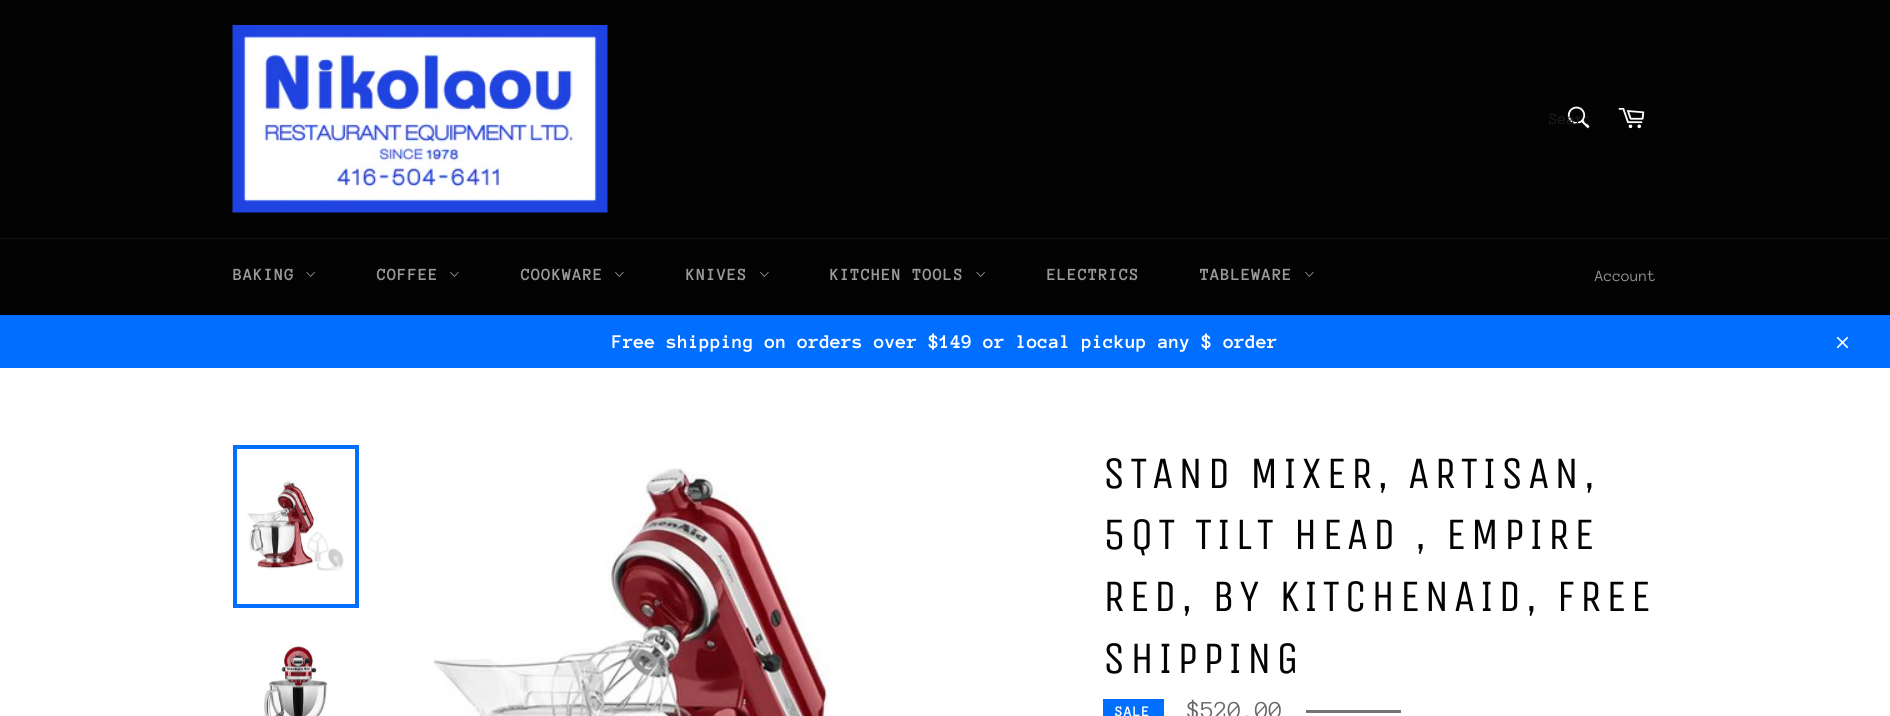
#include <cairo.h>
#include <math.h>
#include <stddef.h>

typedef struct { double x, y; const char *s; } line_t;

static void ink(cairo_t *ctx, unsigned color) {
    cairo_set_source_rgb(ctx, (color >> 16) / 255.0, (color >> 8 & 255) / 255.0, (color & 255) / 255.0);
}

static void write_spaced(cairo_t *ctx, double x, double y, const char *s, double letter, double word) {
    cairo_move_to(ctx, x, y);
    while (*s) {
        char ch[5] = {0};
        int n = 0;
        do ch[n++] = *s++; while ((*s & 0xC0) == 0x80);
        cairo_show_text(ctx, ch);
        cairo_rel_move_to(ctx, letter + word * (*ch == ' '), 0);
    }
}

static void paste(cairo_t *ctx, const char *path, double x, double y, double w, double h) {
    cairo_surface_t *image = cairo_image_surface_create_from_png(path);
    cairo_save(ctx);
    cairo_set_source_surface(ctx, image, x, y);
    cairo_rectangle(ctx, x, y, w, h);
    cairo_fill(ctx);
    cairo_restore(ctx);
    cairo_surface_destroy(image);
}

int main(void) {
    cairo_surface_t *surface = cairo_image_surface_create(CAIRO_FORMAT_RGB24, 1890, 716);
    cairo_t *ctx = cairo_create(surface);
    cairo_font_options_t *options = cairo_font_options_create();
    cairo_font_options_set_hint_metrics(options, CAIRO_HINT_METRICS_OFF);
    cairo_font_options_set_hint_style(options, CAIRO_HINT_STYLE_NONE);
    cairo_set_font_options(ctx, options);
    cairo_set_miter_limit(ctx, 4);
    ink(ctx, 0x030303);
    cairo_paint(ctx);
    paste(ctx, "media/1.png", 232, 25, 376, 188);
    paste(ctx, "media/2.png", 1567, 106, 23, 23);
    cairo_save(ctx);
    cairo_rectangle(ctx, 1549, 111, 40, 17);
    cairo_clip(ctx);
    cairo_select_font_face(ctx, "Anonymous Pro", CAIRO_FONT_SLANT_NORMAL, CAIRO_FONT_WEIGHT_NORMAL);
    cairo_set_font_size(ctx, 16);
    ink(ctx, 0x1F1F1F);
    cairo_move_to(ctx, 1549, 124);
    cairo_show_text(ctx, "Searc");
    cairo_restore(ctx);
    paste(ctx, "media/3.png", 1618, 108, 27, 21);
    ink(ctx, 0x101010);
    cairo_rectangle(ctx, 0, 238, 1890, 1);
    cairo_fill(ctx);
    cairo_select_font_face(ctx, "Anonymous Pro", CAIRO_FONT_SLANT_NORMAL, CAIRO_FONT_WEIGHT_BOLD);
    cairo_set_font_size(ctx, 17.5);
    ink(ctx, 0x9A9A9A);
    write_spaced(ctx, 233, 280, "BAKING", 0.75, 0);
    paste(ctx, "media/4.png", 306, 271, 9, 6);
    write_spaced(ctx, 377, 280, "COFFEE", 0.75, 0);
    paste(ctx, "media/5.png", 450, 271, 9, 6);
    write_spaced(ctx, 521, 280, "COOKWARE", 0.75, 0);
    paste(ctx, "media/5.png", 615, 271, 9, 6);
    write_spaced(ctx, 686, 280, "KNIVES", 0.75, 0);
    paste(ctx, "media/5.png", 760, 271, 9, 6);
    write_spaced(ctx, 830, 280, "KITCHEN TOOLS", 0.75, 0);
    paste(ctx, "media/4.png", 976, 271, 9, 6);
    write_spaced(ctx, 1047, 280, "ELECTRICS", 0.75, 0);
    write_spaced(ctx, 1200, 280, "TABLEWARE", 0.75, 0);
    paste(ctx, "media/5.png", 1305, 271, 9, 6);
    cairo_select_font_face(ctx, "Anonymous Pro", CAIRO_FONT_SLANT_NORMAL, CAIRO_FONT_WEIGHT_NORMAL);
    cairo_set_font_size(ctx, 16);
    cairo_move_to(ctx, 1595, 281);
    cairo_show_text(ctx, "Account");
    ink(ctx, 0x006EFF);
    cairo_rectangle(ctx, 0, 315, 1890, 53);
    cairo_fill(ctx);
    cairo_select_font_face(ctx, "Anonymous Pro", CAIRO_FONT_SLANT_NORMAL, CAIRO_FONT_WEIGHT_BOLD);
    cairo_set_font_size(ctx, 20);
    ink(ctx, 0xFFFFFF);
    cairo_move_to(ctx, 612, 348);
    cairo_show_text(ctx, "Free shipping on orders over $149 or local pickup any $ order");
    paste(ctx, "media/6.png", 1836, 336, 13, 13);
    cairo_rectangle(ctx, 0, 368, 1890, 348);
    cairo_fill(ctx);
    paste(ctx, "media/7.png", 247, 481, 97, 90);
    cairo_rectangle(ctx, 235, 447, 122, 159);
    ink(ctx, 0x006EFF);
    cairo_set_line_width(ctx, 4);
    cairo_stroke(ctx);
    paste(ctx, "media/8.png", 264, 645, 64, 71);
    paste(ctx, "media/9.png", 433, 468, 396, 248);
    cairo_select_font_face(ctx, "Unica One", CAIRO_FONT_SLANT_NORMAL, CAIRO_FONT_WEIGHT_NORMAL);
    cairo_set_font_size(ctx, 45);
    ink(ctx, 0x030303);
    {
        static const line_t items[] = {
            {1103, 488, "STAND MIXER, ARTISAN,"},
            {1103, 549, "5QT TILT HEAD , EMPIRE"},
            {1103, 611, "RED, BY KITCHENAID, FREE"},
            {1103, 673, "SHIPPING"},
        };
        for (size_t i = 0; i < sizeof items / sizeof *items; i++) {
            write_spaced(ctx, items[i].x, items[i].y, items[i].s, 4.5, 0);
        }
    }
    ink(ctx, 0x006EFF);
    cairo_rectangle(ctx, 1103, 699, 61, 17);
    cairo_fill(ctx);
    cairo_select_font_face(ctx, "Anonymous Pro", CAIRO_FONT_SLANT_NORMAL, CAIRO_FONT_WEIGHT_BOLD);
    cairo_set_font_size(ctx, 15);
    ink(ctx, 0xFFFFFF);
    write_spaced(ctx, 1115, 716, "SALE", 0.75, 0);
    cairo_select_font_face(ctx, "Anonymous Pro", CAIRO_FONT_SLANT_NORMAL, CAIRO_FONT_WEIGHT_NORMAL);
    cairo_set_font_size(ctx, 25);
    ink(ctx, 0x666666);
    cairo_move_to(ctx, 1187, 718);
    cairo_show_text(ctx, "$520.00");
    ink(ctx, 0x737373);
    cairo_rectangle(ctx, 1306, 710, 95, 3);
    cairo_fill(ctx);
    cairo_surface_write_to_png(surface, "image.png");
    cairo_font_options_destroy(options);
    cairo_destroy(ctx);
    cairo_surface_destroy(surface);
    return 0;
}
